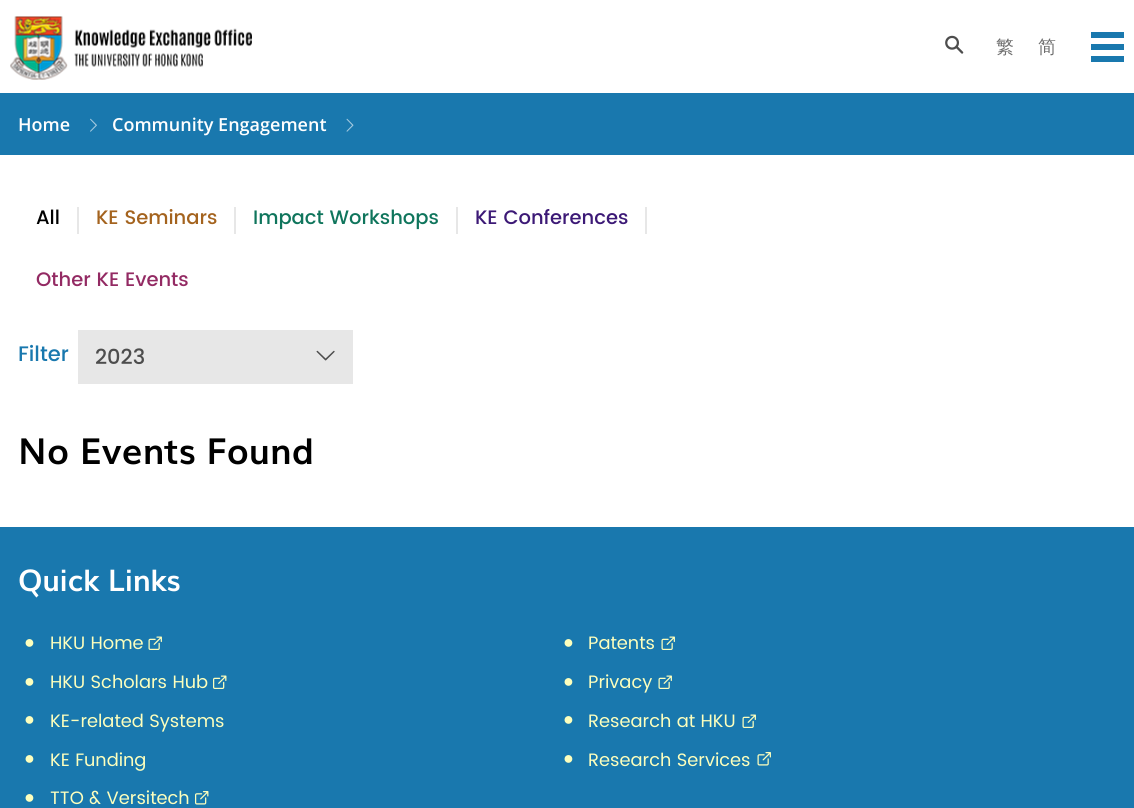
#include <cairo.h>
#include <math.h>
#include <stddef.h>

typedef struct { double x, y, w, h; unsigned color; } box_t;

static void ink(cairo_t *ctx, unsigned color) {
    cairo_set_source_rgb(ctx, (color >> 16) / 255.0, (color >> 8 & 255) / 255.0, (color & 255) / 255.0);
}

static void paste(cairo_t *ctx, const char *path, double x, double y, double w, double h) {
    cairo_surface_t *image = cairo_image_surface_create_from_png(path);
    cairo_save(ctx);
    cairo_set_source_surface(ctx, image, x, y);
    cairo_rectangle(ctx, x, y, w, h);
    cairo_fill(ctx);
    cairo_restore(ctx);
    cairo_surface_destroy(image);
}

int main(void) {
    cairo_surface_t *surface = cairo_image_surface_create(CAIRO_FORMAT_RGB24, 1134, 808);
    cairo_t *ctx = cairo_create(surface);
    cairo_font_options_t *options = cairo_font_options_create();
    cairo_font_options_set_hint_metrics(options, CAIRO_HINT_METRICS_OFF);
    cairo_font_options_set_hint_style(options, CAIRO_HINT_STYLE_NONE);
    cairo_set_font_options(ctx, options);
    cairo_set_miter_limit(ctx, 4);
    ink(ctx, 0xFFFFFF);
    cairo_paint(ctx);
    paste(ctx, "media/1.png", 10, 16, 58, 64);
    paste(ctx, "media/2.png", 67, 28, 185, 39);
    paste(ctx, "media/3.png", 945, 35, 19, 19);
    cairo_select_font_face(ctx, "WenQuanYi Zen Hei Medium", CAIRO_FONT_SLANT_NORMAL, CAIRO_FONT_WEIGHT_NORMAL);
    cairo_set_font_size(ctx, 18);
    ink(ctx, 0x6E6E6E);
    cairo_move_to(ctx, 996, 53);
    cairo_show_text(ctx, "繁");
    cairo_move_to(ctx, 1038, 53);
    cairo_show_text(ctx, "简");
    {
        static const box_t items[] = {
            {1091, 32, 33, 6, 0x1978AE},
            {1091, 44, 33, 6, 0x1978AE},
            {1091, 56, 33, 6, 0x1978AE},
            {0, 93, 1134, 62, 0x1978AE},
        };
        for (size_t i = 0; i < sizeof items / sizeof *items; i++) {
            ink(ctx, items[i].color);
            cairo_rectangle(ctx, items[i].x, items[i].y, items[i].w, items[i].h);
            cairo_fill(ctx);
        }
    }
    cairo_select_font_face(ctx, "Open Sans SemiBold", CAIRO_FONT_SLANT_NORMAL, CAIRO_FONT_WEIGHT_NORMAL);
    ink(ctx, 0xFFFFFF);
    cairo_move_to(ctx, 18, 131);
    cairo_show_text(ctx, "Home");
    paste(ctx, "media/4.png", 90, 118, 7, 14);
    cairo_move_to(ctx, 112, 131);
    cairo_show_text(ctx, "Community Engagement");
    paste(ctx, "media/5.png", 346, 118, 8, 14);
    cairo_select_font_face(ctx, "Poppins Medium", CAIRO_FONT_SLANT_NORMAL, CAIRO_FONT_WEIGHT_NORMAL);
    cairo_set_font_size(ctx, 19.5);
    ink(ctx, 0x000000);
    cairo_move_to(ctx, 36, 224);
    cairo_show_text(ctx, "All");
    ink(ctx, 0xE7E7E7);
    cairo_rectangle(ctx, 77, 207, 2, 27);
    cairo_fill(ctx);
    ink(ctx, 0xA4631E);
    cairo_move_to(ctx, 96, 224);
    cairo_show_text(ctx, "KE Seminars");
    ink(ctx, 0xE7E7E7);
    cairo_rectangle(ctx, 234, 207, 2, 27);
    cairo_fill(ctx);
    ink(ctx, 0x0F755C);
    cairo_move_to(ctx, 253, 224);
    cairo_show_text(ctx, "Impact Workshops");
    ink(ctx, 0xE7E7E7);
    cairo_rectangle(ctx, 456, 207, 2, 27);
    cairo_fill(ctx);
    ink(ctx, 0x3C1976);
    cairo_move_to(ctx, 475, 224);
    cairo_show_text(ctx, "KE Conferences");
    ink(ctx, 0xE7E7E7);
    cairo_rectangle(ctx, 645, 207, 2, 27);
    cairo_fill(ctx);
    ink(ctx, 0x932A63);
    cairo_move_to(ctx, 36, 286);
    cairo_show_text(ctx, "Other KE Events");
    cairo_set_font_size(ctx, 21);
    ink(ctx, 0x1978AE);
    cairo_move_to(ctx, 18, 361);
    cairo_show_text(ctx, "Filter");
    ink(ctx, 0xE7E7E7);
    cairo_rectangle(ctx, 78, 330, 275, 54);
    cairo_fill(ctx);
    ink(ctx, 0x4D4D4D);
    cairo_move_to(ctx, 95, 364);
    cairo_show_text(ctx, "2023");
    paste(ctx, "media/6.png", 316, 350, 19, 11);
    cairo_select_font_face(ctx, "Muli", CAIRO_FONT_SLANT_NORMAL, CAIRO_FONT_WEIGHT_BOLD);
    cairo_set_font_size(ctx, 36);
    ink(ctx, 0x000000);
    cairo_move_to(ctx, 18, 464);
    cairo_show_text(ctx, "No Events Found");
    ink(ctx, 0x1978AE);
    cairo_rectangle(ctx, 0, 527, 1134, 281);
    cairo_fill(ctx);
    cairo_set_font_size(ctx, 30);
    ink(ctx, 0xFFFFFF);
    cairo_move_to(ctx, 18, 591);
    cairo_show_text(ctx, "Quick Links");
    cairo_select_font_face(ctx, "Liberation Serif", CAIRO_FONT_SLANT_NORMAL, CAIRO_FONT_WEIGHT_NORMAL);
    cairo_set_font_size(ctx, 18);
    ink(ctx, 0xFDFFBD);
    cairo_move_to(ctx, 24, 648);
    cairo_show_text(ctx, "●");
    cairo_select_font_face(ctx, "Poppins", CAIRO_FONT_SLANT_NORMAL, CAIRO_FONT_WEIGHT_NORMAL);
    cairo_move_to(ctx, 50, 649);
    cairo_show_text(ctx, "HKU Home");
    paste(ctx, "media/7.png", 148, 636, 14, 14);
    cairo_select_font_face(ctx, "Liberation Serif", CAIRO_FONT_SLANT_NORMAL, CAIRO_FONT_WEIGHT_NORMAL);
    cairo_move_to(ctx, 24, 687);
    cairo_show_text(ctx, "●");
    cairo_select_font_face(ctx, "Poppins", CAIRO_FONT_SLANT_NORMAL, CAIRO_FONT_WEIGHT_NORMAL);
    cairo_move_to(ctx, 50, 688);
    cairo_show_text(ctx, "HKU Scholars Hub");
    paste(ctx, "media/8.png", 213, 675, 14, 14);
    cairo_select_font_face(ctx, "Liberation Serif", CAIRO_FONT_SLANT_NORMAL, CAIRO_FONT_WEIGHT_NORMAL);
    cairo_move_to(ctx, 24, 725);
    cairo_show_text(ctx, "●");
    cairo_select_font_face(ctx, "Poppins", CAIRO_FONT_SLANT_NORMAL, CAIRO_FONT_WEIGHT_NORMAL);
    cairo_move_to(ctx, 50, 727);
    cairo_show_text(ctx, "KE-related Systems");
    cairo_select_font_face(ctx, "Liberation Serif", CAIRO_FONT_SLANT_NORMAL, CAIRO_FONT_WEIGHT_NORMAL);
    cairo_move_to(ctx, 24, 764);
    cairo_show_text(ctx, "●");
    cairo_select_font_face(ctx, "Poppins", CAIRO_FONT_SLANT_NORMAL, CAIRO_FONT_WEIGHT_NORMAL);
    cairo_move_to(ctx, 50, 766);
    cairo_show_text(ctx, "KE Funding");
    cairo_select_font_face(ctx, "Liberation Serif", CAIRO_FONT_SLANT_NORMAL, CAIRO_FONT_WEIGHT_NORMAL);
    cairo_move_to(ctx, 563, 648);
    cairo_show_text(ctx, "●");
    cairo_select_font_face(ctx, "Poppins", CAIRO_FONT_SLANT_NORMAL, CAIRO_FONT_WEIGHT_NORMAL);
    cairo_move_to(ctx, 588, 649);
    cairo_show_text(ctx, "Patents");
    paste(ctx, "media/7.png", 661, 636, 14, 14);
    cairo_select_font_face(ctx, "Liberation Serif", CAIRO_FONT_SLANT_NORMAL, CAIRO_FONT_WEIGHT_NORMAL);
    cairo_move_to(ctx, 563, 687);
    cairo_show_text(ctx, "●");
    cairo_select_font_face(ctx, "Poppins", CAIRO_FONT_SLANT_NORMAL, CAIRO_FONT_WEIGHT_NORMAL);
    cairo_move_to(ctx, 588, 688);
    cairo_show_text(ctx, "Privacy");
    paste(ctx, "media/7.png", 658, 675, 14, 14);
    cairo_select_font_face(ctx, "Liberation Serif", CAIRO_FONT_SLANT_NORMAL, CAIRO_FONT_WEIGHT_NORMAL);
    cairo_move_to(ctx, 563, 725);
    cairo_show_text(ctx, "●");
    cairo_select_font_face(ctx, "Poppins", CAIRO_FONT_SLANT_NORMAL, CAIRO_FONT_WEIGHT_NORMAL);
    cairo_move_to(ctx, 588, 727);
    cairo_show_text(ctx, "Research at HKU");
    paste(ctx, "media/7.png", 742, 714, 14, 14);
    cairo_select_font_face(ctx, "Liberation Serif", CAIRO_FONT_SLANT_NORMAL, CAIRO_FONT_WEIGHT_NORMAL);
    cairo_move_to(ctx, 563, 764);
    cairo_show_text(ctx, "●");
    cairo_select_font_face(ctx, "Poppins", CAIRO_FONT_SLANT_NORMAL, CAIRO_FONT_WEIGHT_NORMAL);
    cairo_move_to(ctx, 588, 766);
    cairo_show_text(ctx, "Research Services");
    paste(ctx, "media/9.png", 757, 752, 14, 14);
    cairo_select_font_face(ctx, "Liberation Serif", CAIRO_FONT_SLANT_NORMAL, CAIRO_FONT_WEIGHT_NORMAL);
    cairo_move_to(ctx, 24, 803);
    cairo_show_text(ctx, "●");
    cairo_select_font_face(ctx, "Poppins", CAIRO_FONT_SLANT_NORMAL, CAIRO_FONT_WEIGHT_NORMAL);
    cairo_move_to(ctx, 50, 804);
    cairo_show_text(ctx, "TTO & Versitech");
    paste(ctx, "media/10.png", 195, 791, 14, 14);
    cairo_surface_write_to_png(surface, "image.png");
    cairo_font_options_destroy(options);
    cairo_destroy(ctx);
    cairo_surface_destroy(surface);
    return 0;
}
